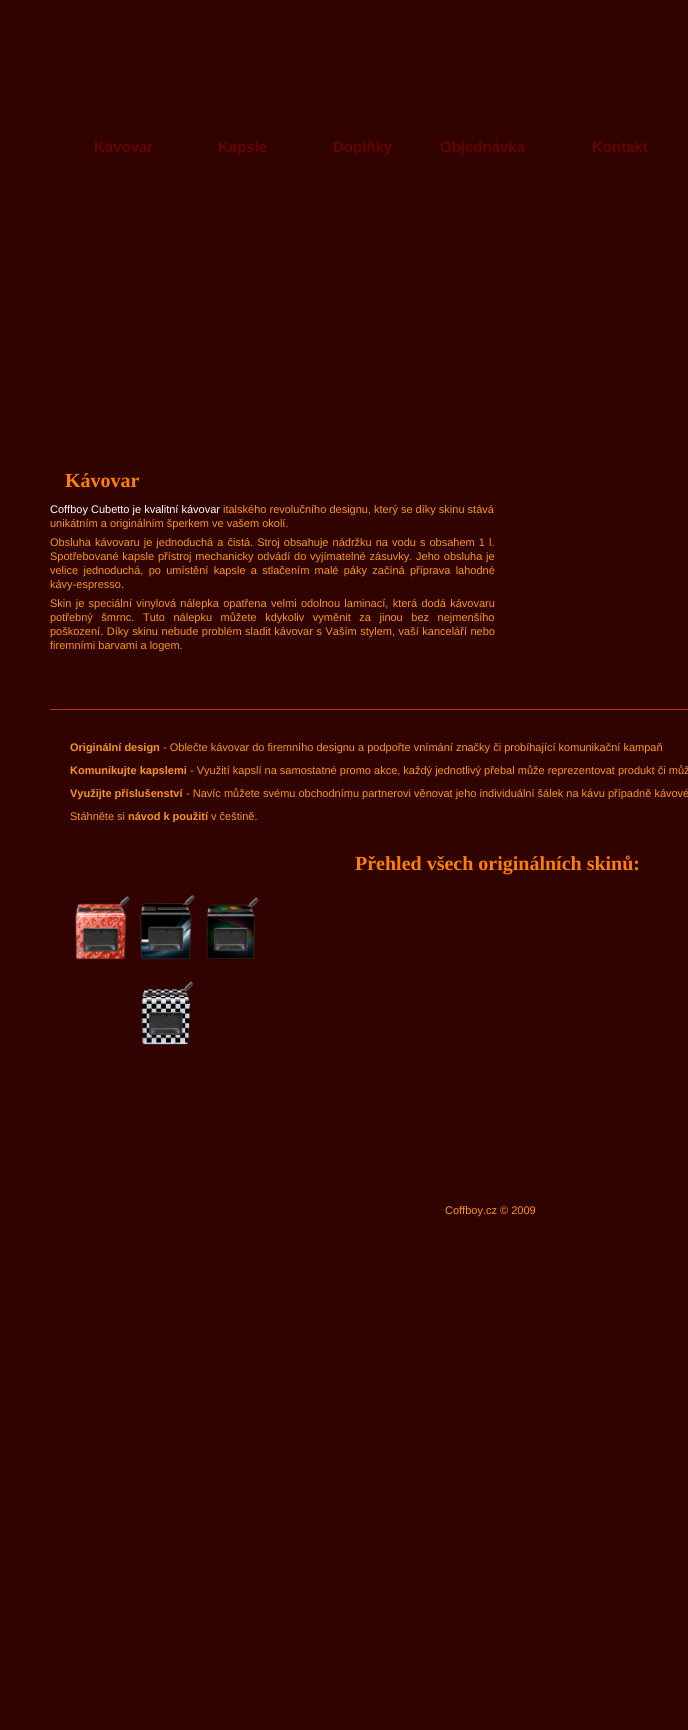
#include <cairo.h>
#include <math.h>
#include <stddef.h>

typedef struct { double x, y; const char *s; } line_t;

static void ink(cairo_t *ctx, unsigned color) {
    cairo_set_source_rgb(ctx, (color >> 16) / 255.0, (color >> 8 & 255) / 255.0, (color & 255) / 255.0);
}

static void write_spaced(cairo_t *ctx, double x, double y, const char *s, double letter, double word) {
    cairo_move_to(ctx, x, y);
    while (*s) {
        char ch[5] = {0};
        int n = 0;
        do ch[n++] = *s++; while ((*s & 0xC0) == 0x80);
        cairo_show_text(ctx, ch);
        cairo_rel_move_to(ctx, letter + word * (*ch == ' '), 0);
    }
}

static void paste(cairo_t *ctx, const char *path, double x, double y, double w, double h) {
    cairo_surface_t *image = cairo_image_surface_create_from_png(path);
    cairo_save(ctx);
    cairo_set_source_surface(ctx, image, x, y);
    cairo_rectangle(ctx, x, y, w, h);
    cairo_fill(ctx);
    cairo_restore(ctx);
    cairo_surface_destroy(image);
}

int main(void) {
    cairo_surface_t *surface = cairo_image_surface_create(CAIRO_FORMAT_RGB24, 688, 1730);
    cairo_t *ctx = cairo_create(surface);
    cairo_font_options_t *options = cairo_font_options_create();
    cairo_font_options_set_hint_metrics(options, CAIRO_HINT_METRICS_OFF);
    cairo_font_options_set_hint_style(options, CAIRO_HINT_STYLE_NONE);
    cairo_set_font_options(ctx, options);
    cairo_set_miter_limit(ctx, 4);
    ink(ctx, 0x300301);
    cairo_paint(ctx);
    cairo_select_font_face(ctx, "Liberation Sans", CAIRO_FONT_SLANT_NORMAL, CAIRO_FONT_WEIGHT_BOLD);
    cairo_set_font_size(ctx, 15);
    ink(ctx, 0x630301);
    {
        static const line_t items[] = {
            {94, 152, "Kávovar"},
            {218, 152, "Kapsle"},
            {333, 152, "Doplňky"},
            {440, 152, "Objednávka"},
            {592, 152, "Kontakt"},
        };
        for (size_t i = 0; i < sizeof items / sizeof *items; i++) {
            cairo_move_to(ctx, items[i].x, items[i].y);
            cairo_show_text(ctx, items[i].s);
        }
    }
    cairo_select_font_face(ctx, "Liberation Serif", CAIRO_FONT_SLANT_NORMAL, CAIRO_FONT_WEIGHT_BOLD);
    cairo_set_font_size(ctx, 20);
    ink(ctx, 0xFF8000);
    cairo_move_to(ctx, 65, 487);
    cairo_show_text(ctx, "Kávovar");
    cairo_select_font_face(ctx, "Liberation Sans", CAIRO_FONT_SLANT_NORMAL, CAIRO_FONT_WEIGHT_NORMAL);
    cairo_set_font_size(ctx, 11);
    ink(ctx, 0xFFFFFF);
    cairo_move_to(ctx, 50, 513);
    cairo_show_text(ctx, "Coffboy Cubetto je kvalitní kávovar");
    ink(ctx, 0xF99322);
    cairo_move_to(ctx, 223, 513);
    cairo_show_text(ctx, "italského revolučního designu, který se díky skinu stává");
    cairo_move_to(ctx, 50, 527);
    cairo_show_text(ctx, "unikátním a originálním šperkem ve vašem okolí.");
    write_spaced(ctx, 50, 546, "Obsluha kávovaru je jednoduchá a čistá. Stroj obsahuje nádržku na vodu s obsahem 1 l.", 0, 1);
    write_spaced(ctx, 50, 560, "Spotřebované kapsle přístroj mechanicky odvádí do vyjímatelné zásuvky. Jeho obsluha je", 0, 0.75);
    write_spaced(ctx, 50, 574, "velice jednoduchá, po umístění kapsle a stlačením malé páky začíná příprava lahodné", 0, 2.25);
    cairo_move_to(ctx, 50, 588);
    cairo_show_text(ctx, "kávy-espresso.");
    write_spaced(ctx, 50, 607, "Skin je speciální vinylová nálepka opatřena velmi odolnou laminací, která dodá kávovaru", 0, 1.25);
    write_spaced(ctx, 50, 621, "potřebný šmrnc. Tuto nálepku můžete kdykoliv vyměnit za jinou bez nejmenšího", 0, 5.5);
    write_spaced(ctx, 50, 635, "poškození. Díky skinu nebude problém sladit kávovar s Vaším stylem, vaší kanceláří nebo", 0, 0.5);
    cairo_move_to(ctx, 50, 649);
    cairo_show_text(ctx, "firemními barvami a logem.");
    ink(ctx, 0xB33812);
    cairo_rectangle(ctx, 50, 709, 638, 1);
    cairo_fill(ctx);
    cairo_select_font_face(ctx, "Liberation Sans", CAIRO_FONT_SLANT_NORMAL, CAIRO_FONT_WEIGHT_BOLD);
    ink(ctx, 0xF99322);
    cairo_move_to(ctx, 70, 751);
    cairo_show_text(ctx, "Originální design");
    cairo_select_font_face(ctx, "Liberation Sans", CAIRO_FONT_SLANT_NORMAL, CAIRO_FONT_WEIGHT_NORMAL);
    cairo_move_to(ctx, 163, 751);
    cairo_show_text(ctx, "- Oblečte kávovar do firemního designu a podpořte vnímání značky či probíhající komunikační kampaň");
    cairo_select_font_face(ctx, "Liberation Sans", CAIRO_FONT_SLANT_NORMAL, CAIRO_FONT_WEIGHT_BOLD);
    cairo_move_to(ctx, 70, 774);
    cairo_show_text(ctx, "Komunikujte kapslemi");
    cairo_select_font_face(ctx, "Liberation Sans", CAIRO_FONT_SLANT_NORMAL, CAIRO_FONT_WEIGHT_NORMAL);
    cairo_move_to(ctx, 190, 774);
    cairo_show_text(ctx, "- Využití kapslí na samostatné promo akce, každý jednotlivý přebal může reprezentovat produkt či můž");
    cairo_select_font_face(ctx, "Liberation Sans", CAIRO_FONT_SLANT_NORMAL, CAIRO_FONT_WEIGHT_BOLD);
    cairo_move_to(ctx, 70, 797);
    cairo_show_text(ctx, "Využijte příslušenství");
    cairo_select_font_face(ctx, "Liberation Sans", CAIRO_FONT_SLANT_NORMAL, CAIRO_FONT_WEIGHT_NORMAL);
    cairo_move_to(ctx, 186, 797);
    cairo_show_text(ctx, "- Navíc můžete svému obchodnímu partnerovi věnovat jeho individuální šálek na kávu případně kávové");
    cairo_move_to(ctx, 70, 820);
    cairo_show_text(ctx, "Stáhněte si");
    cairo_select_font_face(ctx, "Liberation Sans", CAIRO_FONT_SLANT_NORMAL, CAIRO_FONT_WEIGHT_BOLD);
    cairo_move_to(ctx, 128, 820);
    cairo_show_text(ctx, "návod k použití");
    cairo_select_font_face(ctx, "Liberation Sans", CAIRO_FONT_SLANT_NORMAL, CAIRO_FONT_WEIGHT_NORMAL);
    cairo_move_to(ctx, 211, 820);
    cairo_show_text(ctx, "v češtině.");
    cairo_select_font_face(ctx, "Liberation Serif", CAIRO_FONT_SLANT_NORMAL, CAIRO_FONT_WEIGHT_BOLD);
    cairo_set_font_size(ctx, 20);
    ink(ctx, 0xFF8000);
    cairo_move_to(ctx, 355, 870);
    cairo_show_text(ctx, "Přehled všech originálních skinů:");
    paste(ctx, "media/1.png", 75, 896, 55, 64);
    paste(ctx, "media/2.png", 140, 895, 55, 65);
    paste(ctx, "media/3.png", 206, 897, 53, 62);
    paste(ctx, "media/4.png", 141, 981, 53, 64);
    cairo_select_font_face(ctx, "Liberation Sans", CAIRO_FONT_SLANT_NORMAL, CAIRO_FONT_WEIGHT_NORMAL);
    cairo_set_font_size(ctx, 11);
    ink(ctx, 0xF99322);
    cairo_move_to(ctx, 445, 1214);
    cairo_show_text(ctx, "Coffboy.cz © 2009");
    cairo_surface_write_to_png(surface, "image.png");
    cairo_font_options_destroy(options);
    cairo_destroy(ctx);
    cairo_surface_destroy(surface);
    return 0;
}
